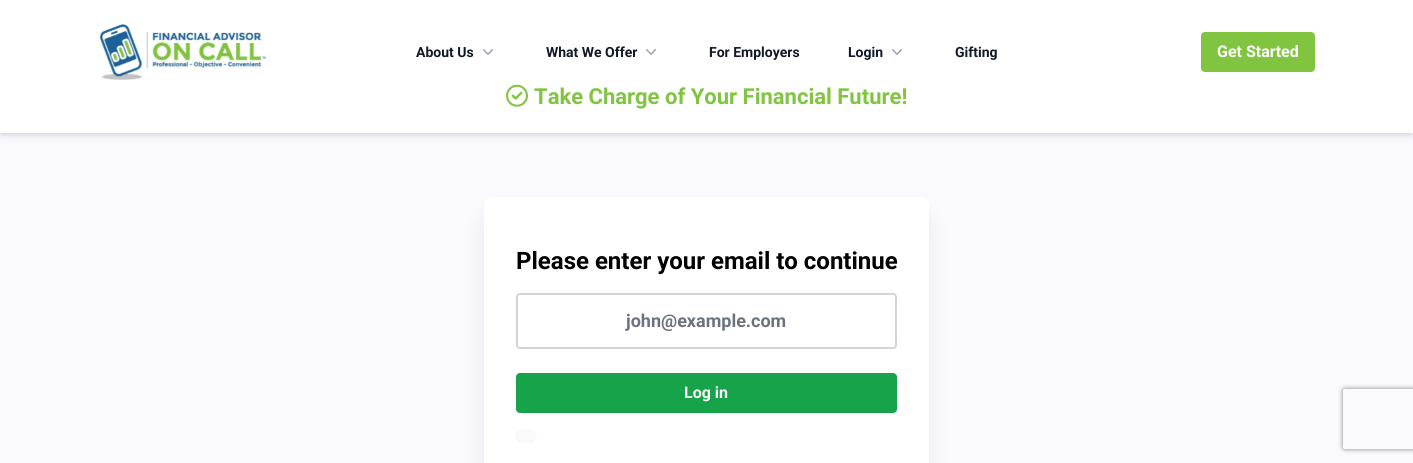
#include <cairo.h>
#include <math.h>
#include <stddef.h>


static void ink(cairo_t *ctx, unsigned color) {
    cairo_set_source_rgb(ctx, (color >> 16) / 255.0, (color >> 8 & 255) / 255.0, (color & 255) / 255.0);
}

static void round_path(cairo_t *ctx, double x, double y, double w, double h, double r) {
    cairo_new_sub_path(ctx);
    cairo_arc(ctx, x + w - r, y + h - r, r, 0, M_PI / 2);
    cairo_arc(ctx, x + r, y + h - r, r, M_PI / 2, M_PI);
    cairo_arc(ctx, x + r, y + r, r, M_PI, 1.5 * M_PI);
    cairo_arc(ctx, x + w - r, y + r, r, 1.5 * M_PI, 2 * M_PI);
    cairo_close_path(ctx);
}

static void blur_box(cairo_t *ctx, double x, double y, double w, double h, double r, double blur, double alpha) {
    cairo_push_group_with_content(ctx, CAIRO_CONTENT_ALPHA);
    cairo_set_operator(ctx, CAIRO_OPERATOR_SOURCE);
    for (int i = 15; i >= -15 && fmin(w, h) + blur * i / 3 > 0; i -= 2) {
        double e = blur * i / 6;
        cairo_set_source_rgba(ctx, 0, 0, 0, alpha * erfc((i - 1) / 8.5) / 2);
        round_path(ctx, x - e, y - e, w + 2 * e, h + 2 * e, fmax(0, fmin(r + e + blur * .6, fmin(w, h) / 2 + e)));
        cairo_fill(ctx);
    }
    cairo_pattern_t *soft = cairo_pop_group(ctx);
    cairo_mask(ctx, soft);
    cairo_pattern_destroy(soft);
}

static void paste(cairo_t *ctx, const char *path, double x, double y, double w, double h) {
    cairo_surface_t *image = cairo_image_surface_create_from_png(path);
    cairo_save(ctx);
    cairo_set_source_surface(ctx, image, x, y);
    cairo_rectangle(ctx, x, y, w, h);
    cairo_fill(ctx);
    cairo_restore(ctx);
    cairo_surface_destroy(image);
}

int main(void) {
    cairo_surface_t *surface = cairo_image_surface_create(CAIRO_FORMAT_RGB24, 1413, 463);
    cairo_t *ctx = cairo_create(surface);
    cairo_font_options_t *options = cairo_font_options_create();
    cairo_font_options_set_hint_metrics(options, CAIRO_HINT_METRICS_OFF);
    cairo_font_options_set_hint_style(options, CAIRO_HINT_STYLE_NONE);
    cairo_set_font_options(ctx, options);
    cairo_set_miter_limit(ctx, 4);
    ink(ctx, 0xF9F9FE);
    cairo_paint(ctx);
    ink(ctx, 0x000000);
    blur_box(ctx, 2, 4, 1409, 129, 0, 2, 0.1);
    blur_box(ctx, 1, 5, 1411, 131, 0, 3, 0.1);
    ink(ctx, 0xFFFFFF);
    cairo_rectangle(ctx, 0, 0, 1413, 133);
    cairo_fill(ctx);
    paste(ctx, "media/1.png", 99, 24, 168, 56);
    cairo_select_font_face(ctx, "Roboto", CAIRO_FONT_SLANT_NORMAL, CAIRO_FONT_WEIGHT_BOLD);
    cairo_set_font_size(ctx, 14);
    ink(ctx, 0x111827);
    cairo_move_to(ctx, 416, 57);
    cairo_show_text(ctx, "About Us");
    paste(ctx, "media/2.png", 483, 49, 10, 6);
    cairo_move_to(ctx, 546, 57);
    cairo_show_text(ctx, "What We Offer");
    paste(ctx, "media/2.png", 646, 49, 10, 6);
    cairo_move_to(ctx, 709, 57);
    cairo_show_text(ctx, "For Employers");
    cairo_move_to(ctx, 848, 57);
    cairo_show_text(ctx, "Login");
    paste(ctx, "media/2.png", 892, 49, 10, 6);
    cairo_move_to(ctx, 955, 57);
    cairo_show_text(ctx, "Gifting");
    ink(ctx, 0x80C440);
    round_path(ctx, 1201, 32, 114, 40, 4);
    cairo_fill(ctx);
    cairo_set_font_size(ctx, 16);
    ink(ctx, 0xFFFFFF);
    cairo_move_to(ctx, 1217, 57);
    cairo_show_text(ctx, "Get Started");
    paste(ctx, "media/3.png", 506, 84, 22, 23);
    cairo_set_font_size(ctx, 22);
    ink(ctx, 0x80C440);
    cairo_move_to(ctx, 534, 104);
    cairo_show_text(ctx, "Take Charge of Your Financial Future!");
    ink(ctx, 0x000000);
    blur_box(ctx, 489, 222, 435, 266, 3, 12.5, 0.1);
    ink(ctx, 0xFFFFFF);
    round_path(ctx, 484, 197, 445, 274, 8);
    cairo_fill(ctx);
    cairo_set_font_size(ctx, 24);
    ink(ctx, 0x000000);
    cairo_move_to(ctx, 516, 269);
    cairo_show_text(ctx, "Please enter your email to continue");
    round_path(ctx, 517, 294, 379, 54, 3);
    ink(ctx, 0xD1D5DB);
    cairo_stroke(ctx);
    cairo_set_font_size(ctx, 18);
    ink(ctx, 0x6B7280);
    cairo_move_to(ctx, 626, 327);
    cairo_show_text(ctx, "john@example.com");
    ink(ctx, 0x16A34A);
    round_path(ctx, 516, 373, 381, 40, 4);
    cairo_fill(ctx);
    cairo_set_font_size(ctx, 16);
    ink(ctx, 0xFFFFFF);
    cairo_move_to(ctx, 684, 398);
    cairo_show_text(ctx, "Log in");
    ink(ctx, 0x000000);
    blur_box(ctx, 516, 430, 20, 12, 6, 1, 0.05);
    ink(ctx, 0xF9FAFB);
    round_path(ctx, 516, 429, 20, 12, 6);
    cairo_fill(ctx);
    cairo_save(ctx);
    cairo_set_fill_rule(ctx, CAIRO_FILL_RULE_EVEN_ODD);
    cairo_new_path(ctx);
    cairo_move_to(ctx, 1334, 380);
    cairo_line_to(ctx, 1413, 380);
    cairo_line_to(ctx, 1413, 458);
    cairo_line_to(ctx, 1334, 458);
    cairo_close_path(ctx);
    cairo_move_to(ctx, 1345, 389);
    cairo_line_to(ctx, 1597, 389);
    cairo_curve_to(ctx, 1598, 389, 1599, 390, 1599, 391);
    cairo_line_to(ctx, 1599, 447);
    cairo_curve_to(ctx, 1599, 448, 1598, 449, 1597, 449);
    cairo_line_to(ctx, 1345, 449);
    cairo_curve_to(ctx, 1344, 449, 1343, 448, 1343, 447);
    cairo_line_to(ctx, 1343, 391);
    cairo_curve_to(ctx, 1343, 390, 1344, 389, 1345, 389);
    cairo_close_path(ctx);
    cairo_clip(ctx);
    ink(ctx, 0x808080);
    blur_box(ctx, 1343, 389, 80, 60, 2, 2.5, 1);
    cairo_restore(ctx);
    cairo_surface_write_to_png(surface, "image.png");
    cairo_font_options_destroy(options);
    cairo_destroy(ctx);
    cairo_surface_destroy(surface);
    return 0;
}
